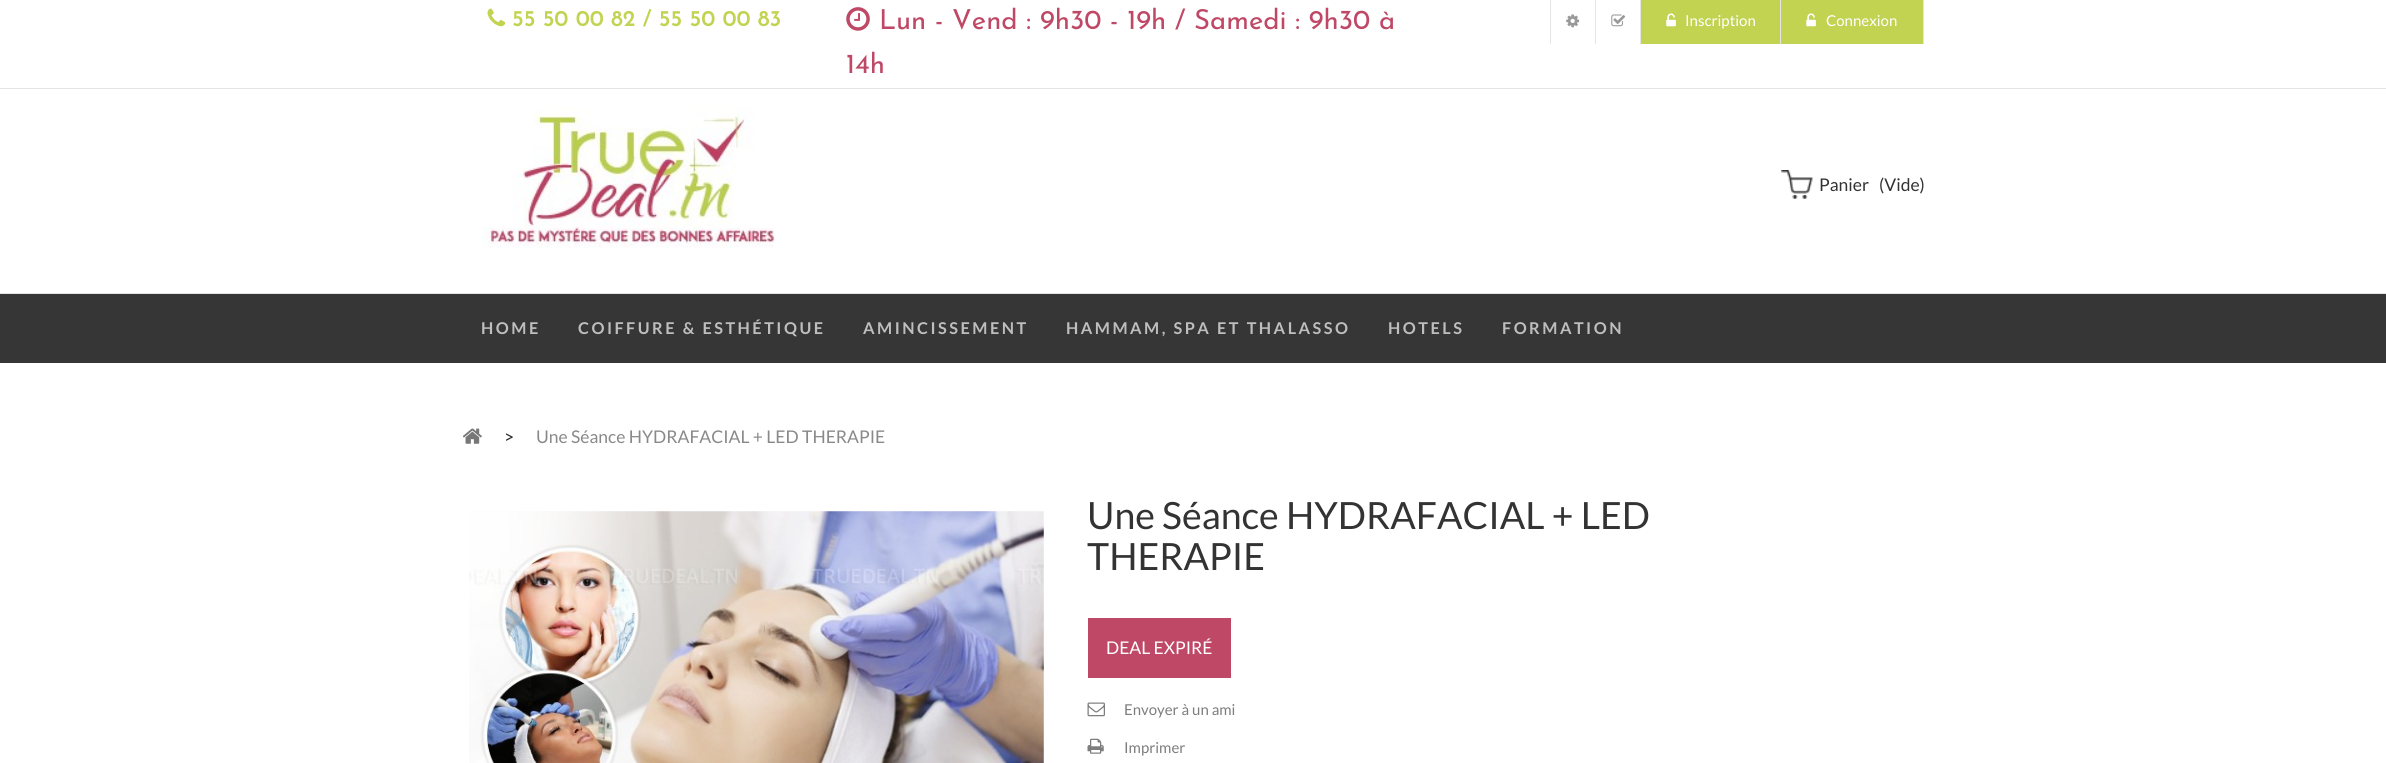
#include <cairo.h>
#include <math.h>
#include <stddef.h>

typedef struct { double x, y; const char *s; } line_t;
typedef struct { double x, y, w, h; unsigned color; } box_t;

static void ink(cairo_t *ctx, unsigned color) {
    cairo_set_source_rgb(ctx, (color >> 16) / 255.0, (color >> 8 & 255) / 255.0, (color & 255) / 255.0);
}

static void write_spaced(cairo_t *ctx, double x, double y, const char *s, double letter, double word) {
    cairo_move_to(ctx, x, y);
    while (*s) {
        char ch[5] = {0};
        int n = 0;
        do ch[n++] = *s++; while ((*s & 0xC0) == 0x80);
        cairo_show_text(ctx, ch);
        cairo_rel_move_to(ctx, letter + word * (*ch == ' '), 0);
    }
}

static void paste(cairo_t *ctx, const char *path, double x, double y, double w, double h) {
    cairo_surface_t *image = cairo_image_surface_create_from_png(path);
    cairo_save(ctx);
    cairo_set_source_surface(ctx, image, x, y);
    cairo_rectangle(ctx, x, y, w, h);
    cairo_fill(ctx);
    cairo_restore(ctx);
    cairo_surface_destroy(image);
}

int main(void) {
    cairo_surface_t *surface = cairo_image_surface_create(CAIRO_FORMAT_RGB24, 2386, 763);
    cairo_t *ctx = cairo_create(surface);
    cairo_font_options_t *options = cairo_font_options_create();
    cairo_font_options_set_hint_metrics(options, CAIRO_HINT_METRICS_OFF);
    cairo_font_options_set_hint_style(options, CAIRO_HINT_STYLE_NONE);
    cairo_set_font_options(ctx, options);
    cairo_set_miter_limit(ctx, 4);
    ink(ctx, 0xFFFFFF);
    cairo_paint(ctx);
    ink(ctx, 0xE5E5E5);
    cairo_rectangle(ctx, 0, 88, 2386, 1);
    cairo_fill(ctx);
    paste(ctx, "media/1.png", 487, 8, 19, 19);
    cairo_select_font_face(ctx, "Josefin Sans SemiBold", CAIRO_FONT_SLANT_NORMAL, CAIRO_FONT_WEIGHT_NORMAL);
    cairo_set_font_size(ctx, 22.5);
    ink(ctx, 0xC2D351);
    cairo_move_to(ctx, 512, 26);
    cairo_show_text(ctx, "55 50 00 82 / 55 50 00 83");
    paste(ctx, "media/2.png", 846, 7, 24, 24);
    cairo_select_font_face(ctx, "Josefin Sans", CAIRO_FONT_SLANT_NORMAL, CAIRO_FONT_WEIGHT_NORMAL);
    cairo_set_font_size(ctx, 27.5);
    ink(ctx, 0xBF4866);
    cairo_move_to(ctx, 879, 29);
    cairo_show_text(ctx, "Lun - Vend : 9h30 - 19h / Samedi : 9h30 à");
    cairo_move_to(ctx, 846, 73);
    cairo_show_text(ctx, "14h");
    ink(ctx, 0xE5E5E5);
    cairo_rectangle(ctx, 1550, 0, 1, 44);
    cairo_fill(ctx);
    paste(ctx, "media/3.png", 1566, 14, 14, 14);
    cairo_rectangle(ctx, 1595, 0, 1, 44);
    cairo_fill(ctx);
    paste(ctx, "media/4.png", 1611, 14, 15, 13);
    cairo_rectangle(ctx, 1640, 0, 1, 44);
    cairo_fill(ctx);
    ink(ctx, 0xC2D351);
    cairo_rectangle(ctx, 1641, 0, 139, 44);
    cairo_fill(ctx);
    paste(ctx, "media/5.png", 1666, 13, 10, 14);
    cairo_select_font_face(ctx, "Lato", CAIRO_FONT_SLANT_NORMAL, CAIRO_FONT_WEIGHT_NORMAL);
    cairo_set_font_size(ctx, 15);
    ink(ctx, 0xFFFFFF);
    cairo_move_to(ctx, 1685, 26);
    cairo_show_text(ctx, "Inscription");
    {
        static const box_t items[] = {
            {1923, 0, 1, 44, 0xE5E5E5},
            {1780, 0, 1, 44, 0xE5E5E5},
            {1781, 0, 142, 44, 0xC2D351},
        };
        for (size_t i = 0; i < sizeof items / sizeof *items; i++) {
            ink(ctx, items[i].color);
            cairo_rectangle(ctx, items[i].x, items[i].y, items[i].w, items[i].h);
            cairo_fill(ctx);
        }
    }
    paste(ctx, "media/5.png", 1806, 13, 10, 14);
    ink(ctx, 0xFFFFFF);
    cairo_move_to(ctx, 1826, 26);
    cairo_show_text(ctx, "Connexion");
    ink(ctx, 0xE5E5E5);
    cairo_rectangle(ctx, 0, 293, 2386, 1);
    cairo_fill(ctx);
    paste(ctx, "media/6.png", 482, 107, 293, 141);
    paste(ctx, "media/7.png", 1781, 170, 32, 29);
    cairo_set_font_size(ctx, 17.5);
    ink(ctx, 0x333333);
    cairo_move_to(ctx, 1819, 191);
    cairo_show_text(ctx, "Panier");
    cairo_move_to(ctx, 1879, 191);
    cairo_show_text(ctx, "(Vide)");
    ink(ctx, 0x363636);
    cairo_rectangle(ctx, 0, 294, 2386, 69);
    cairo_fill(ctx);
    cairo_select_font_face(ctx, "Lato", CAIRO_FONT_SLANT_NORMAL, CAIRO_FONT_WEIGHT_BOLD);
    cairo_set_font_size(ctx, 16.25);
    ink(ctx, 0xBEBEBE);
    {
        static const line_t items[] = {
            {481, 334, "HOME"},
            {578, 334, "COIFFURE & ESTHÉTIQUE"},
            {863, 334, "AMINCISSEMENT"},
            {1066, 334, "HAMMAM, SPA ET THALASSO"},
            {1388, 334, "HOTELS"},
            {1502, 334, "FORMATION"},
        };
        for (size_t i = 0; i < sizeof items / sizeof *items; i++) {
            write_spaced(ctx, items[i].x, items[i].y, items[i].s, 2.5, 0);
        }
    }
    paste(ctx, "media/8.png", 463, 428, 19, 16);
    cairo_select_font_face(ctx, "Lato", CAIRO_FONT_SLANT_NORMAL, CAIRO_FONT_WEIGHT_NORMAL);
    cairo_set_font_size(ctx, 17.5);
    ink(ctx, 0x252525);
    cairo_move_to(ctx, 504, 443);
    cairo_show_text(ctx, ">");
    ink(ctx, 0x898989);
    cairo_move_to(ctx, 536, 443);
    cairo_show_text(ctx, "Une Séance HYDRAFACIAL + LED THERAPIE");
    ink(ctx, 0xFBFBFB);
    cairo_rectangle(ctx, 469, 511, 575, 252);
    cairo_fill(ctx);
    paste(ctx, "media/9.png", 469, 511, 575, 252);
    cairo_set_font_size(ctx, 37.5);
    ink(ctx, 0x333333);
    cairo_move_to(ctx, 1087, 529);
    cairo_show_text(ctx, "Une Séance HYDRAFACIAL + LED");
    cairo_move_to(ctx, 1087, 570);
    cairo_show_text(ctx, "THERAPIE");
    ink(ctx, 0xBF4866);
    cairo_rectangle(ctx, 1088, 618, 143, 60);
    cairo_fill(ctx);
    cairo_set_font_size(ctx, 17.5);
    ink(ctx, 0xFFFFFF);
    cairo_move_to(ctx, 1106, 654);
    cairo_show_text(ctx, "DEAL EXPIRÉ");
    paste(ctx, "media/10.png", 1087, 702, 18, 15);
    cairo_set_font_size(ctx, 15);
    ink(ctx, 0x7D7D7D);
    cairo_move_to(ctx, 1124, 715);
    cairo_show_text(ctx, "Envoyer à un ami");
    paste(ctx, "media/11.png", 1087, 738, 17, 16);
    cairo_move_to(ctx, 1124, 753);
    cairo_show_text(ctx, "Imprimer");
    cairo_surface_write_to_png(surface, "image.png");
    cairo_font_options_destroy(options);
    cairo_destroy(ctx);
    cairo_surface_destroy(surface);
    return 0;
}
